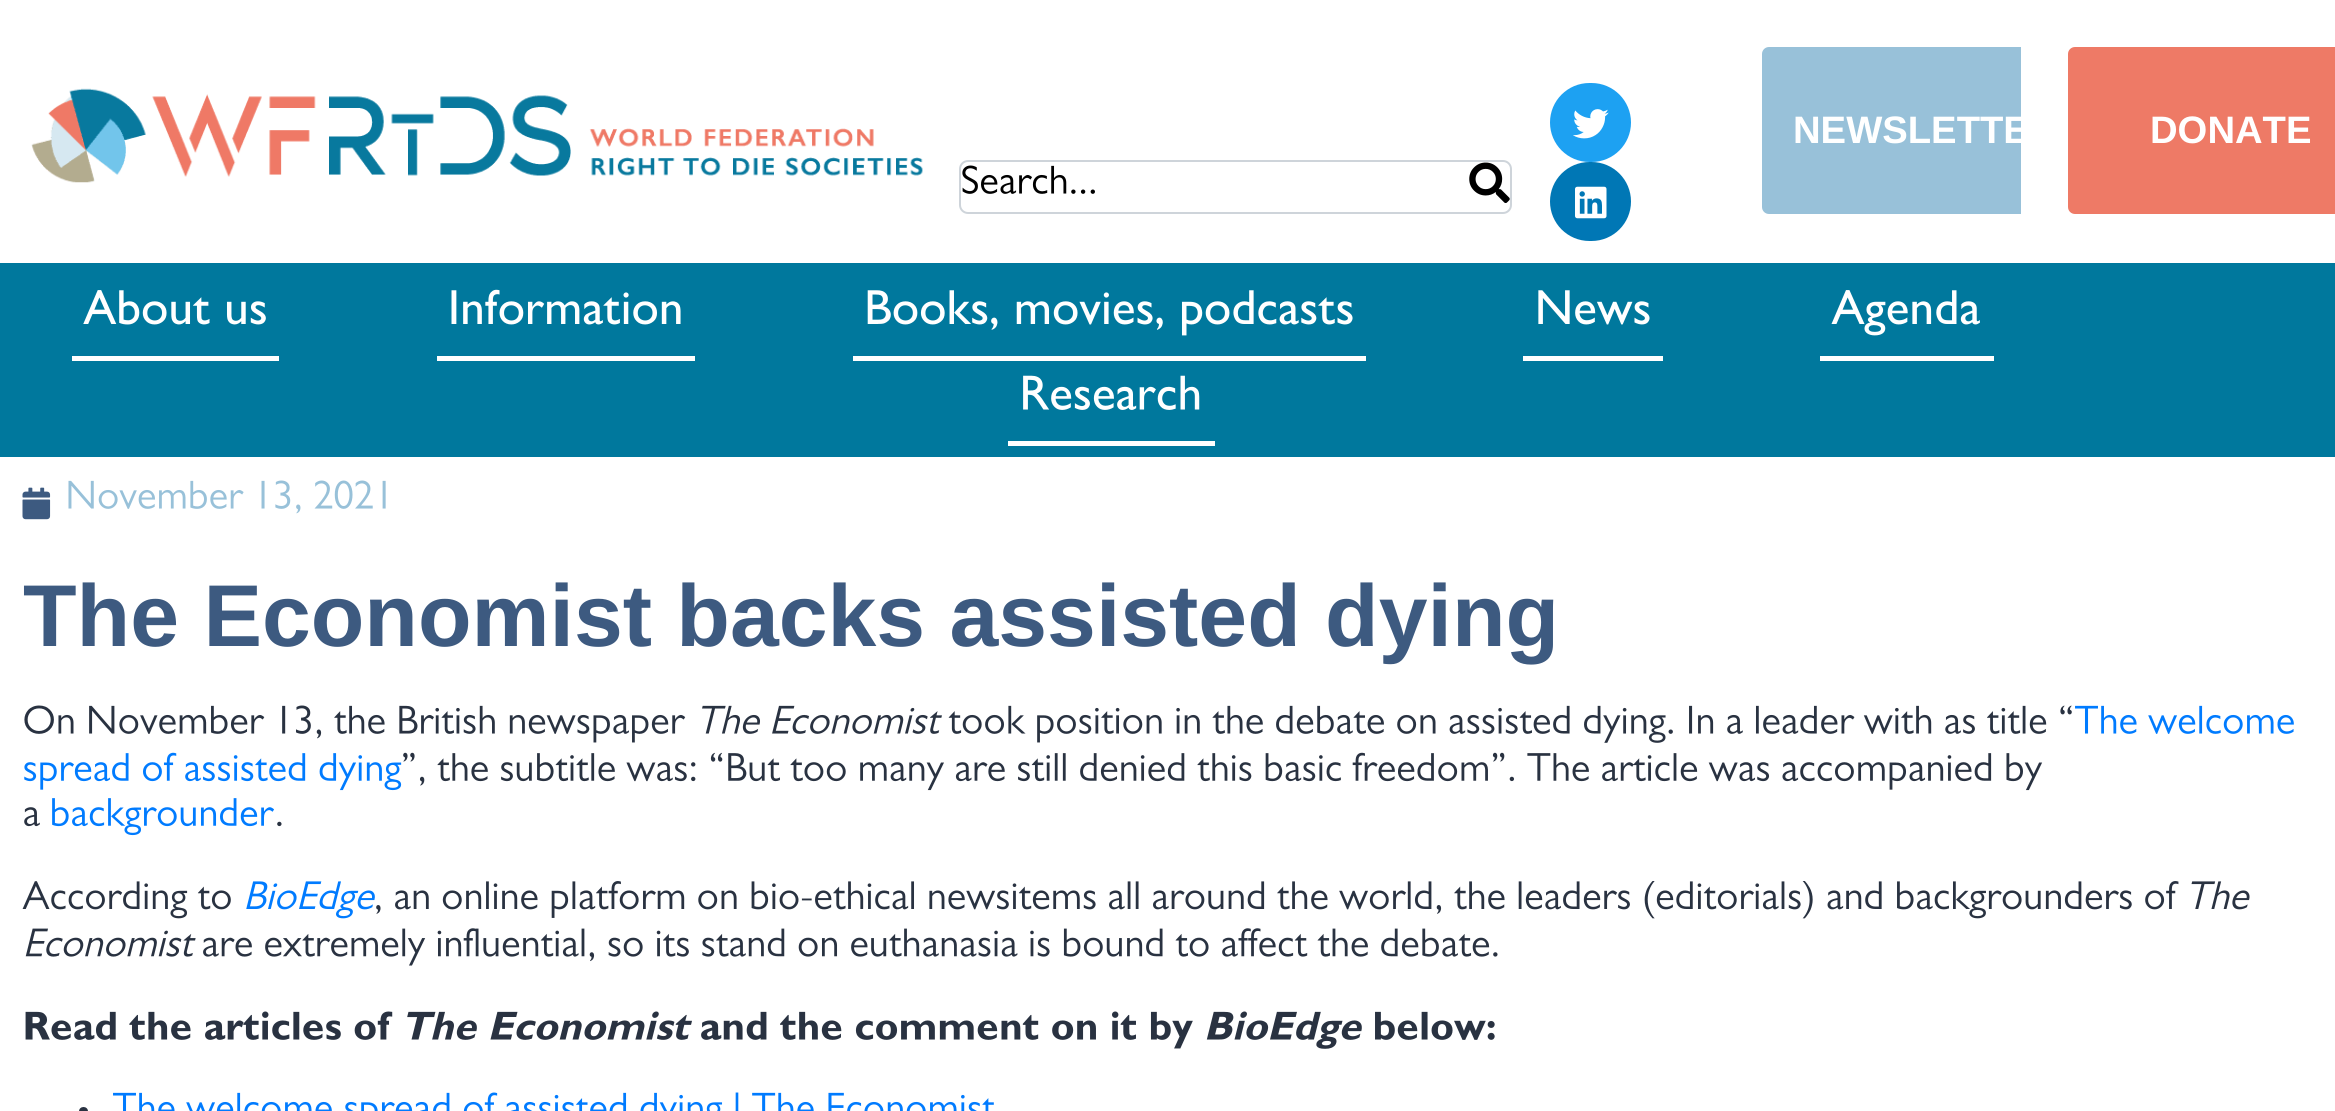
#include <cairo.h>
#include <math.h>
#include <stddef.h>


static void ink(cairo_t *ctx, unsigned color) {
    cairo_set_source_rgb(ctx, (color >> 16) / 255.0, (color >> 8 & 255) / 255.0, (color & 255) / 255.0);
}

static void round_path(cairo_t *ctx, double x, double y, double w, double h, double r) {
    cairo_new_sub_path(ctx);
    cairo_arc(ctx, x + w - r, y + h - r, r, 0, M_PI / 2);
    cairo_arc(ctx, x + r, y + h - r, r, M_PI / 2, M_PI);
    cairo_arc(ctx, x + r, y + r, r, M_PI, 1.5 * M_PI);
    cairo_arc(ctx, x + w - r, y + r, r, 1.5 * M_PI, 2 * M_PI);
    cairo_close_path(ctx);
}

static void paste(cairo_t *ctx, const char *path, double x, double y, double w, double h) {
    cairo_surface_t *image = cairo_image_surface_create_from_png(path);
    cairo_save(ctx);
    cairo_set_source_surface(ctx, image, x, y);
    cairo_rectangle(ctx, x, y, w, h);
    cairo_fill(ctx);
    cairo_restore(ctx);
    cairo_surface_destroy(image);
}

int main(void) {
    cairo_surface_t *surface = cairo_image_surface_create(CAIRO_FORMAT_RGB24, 2335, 1111);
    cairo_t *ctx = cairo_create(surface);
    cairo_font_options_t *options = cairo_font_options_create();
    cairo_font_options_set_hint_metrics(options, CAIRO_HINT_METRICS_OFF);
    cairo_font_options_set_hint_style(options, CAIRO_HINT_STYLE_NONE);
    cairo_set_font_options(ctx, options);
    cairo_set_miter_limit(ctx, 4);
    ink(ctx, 0xFFFFFF);
    cairo_paint(ctx);
    paste(ctx, "media/1.png", 31, 88, 892, 95);
    ink(ctx, 0x1DA1F2);
    round_path(ctx, 1550, 83, 81, 79, 39.5);
    cairo_fill(ctx);
    paste(ctx, "media/2.png", 1573, 109, 36, 30);
    ink(ctx, 0x0077B5);
    round_path(ctx, 1550, 162, 81, 79, 39.5);
    cairo_fill(ctx);
    paste(ctx, "media/3.png", 1575, 186, 32, 33);
    ink(ctx, 0x98C1D9);
    round_path(ctx, 1762, 47, 326, 167, 7);
    cairo_fill(ctx);
    ink(ctx, 0xFFFFFF);
    cairo_rectangle(ctx, 2021, 47, 67, 167);
    cairo_fill(ctx);
    cairo_select_font_face(ctx, "Liberation Sans", CAIRO_FONT_SLANT_NORMAL, CAIRO_FONT_WEIGHT_BOLD);
    cairo_set_font_size(ctx, 38.25);
    cairo_move_to(ctx, 1793, 143);
    cairo_show_text(ctx, "NEWSLETTE");
    ink(ctx, 0xEE7A66);
    round_path(ctx, 2068, 47, 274, 167, 7);
    cairo_fill(ctx);
    ink(ctx, 0xFFFFFF);
    cairo_move_to(ctx, 2150, 143);
    cairo_show_text(ctx, "DONATE");
    round_path(ctx, 960, 161, 551, 52, 8);
    ink(ctx, 0xCED4DA);
    cairo_stroke(ctx);
    paste(ctx, "media/4.png", 962, 165, 133, 29);
    paste(ctx, "media/5.png", 1469, 162, 41, 41);
    ink(ctx, 0x00789D);
    cairo_rectangle(ctx, 0, 263, 2335, 194);
    cairo_fill(ctx);
    ink(ctx, 0xFFFFFF);
    cairo_rectangle(ctx, 72, 356, 207, 5);
    cairo_fill(ctx);
    paste(ctx, "media/6.png", 83, 290, 183, 35);
    cairo_rectangle(ctx, 437, 356, 258, 5);
    cairo_fill(ctx);
    paste(ctx, "media/7.png", 451, 289, 230, 36);
    cairo_rectangle(ctx, 853, 356, 513, 5);
    cairo_fill(ctx);
    paste(ctx, "media/8.png", 867, 290, 486, 46);
    cairo_rectangle(ctx, 1523, 356, 140, 5);
    cairo_fill(ctx);
    paste(ctx, "media/9.png", 1538, 290, 112, 35);
    cairo_rectangle(ctx, 1820, 356, 174, 5);
    cairo_fill(ctx);
    paste(ctx, "media/10.png", 1831, 290, 149, 46);
    cairo_rectangle(ctx, 1008, 441, 207, 5);
    cairo_fill(ctx);
    paste(ctx, "media/11.png", 1023, 375, 177, 35);
    paste(ctx, "media/12.png", 22, 487, 29, 33);
    paste(ctx, "media/13.png", 68, 480, 318, 34);
    cairo_set_font_size(ctx, 87.75);
    ink(ctx, 0x3D5A80);
    cairo_move_to(ctx, 23, 646);
    cairo_show_text(ctx, "The Economist backs assisted dying");
    paste(ctx, "media/14.png", 24, 705, 662, 38);
    paste(ctx, "media/15.png", 702, 705, 240, 29);
    paste(ctx, "media/16.png", 948, 705, 1124, 38);
    paste(ctx, "media/17.png", 2075, 705, 219, 29);
    paste(ctx, "media/18.png", 24, 752, 378, 39);
    paste(ctx, "media/19.png", 403, 752, 1640, 39);
    paste(ctx, "media/20.png", 24, 807, 16, 20);
    paste(ctx, "media/21.png", 52, 798, 222, 38);
    paste(ctx, "media/22.png", 277, 821, 5, 6);
    paste(ctx, "media/23.png", 22, 881, 209, 38);
    paste(ctx, "media/24.png", 246, 881, 129, 38);
    paste(ctx, "media/25.png", 376, 881, 1803, 38);
    paste(ctx, "media/26.png", 2191, 881, 59, 29);
    paste(ctx, "media/27.png", 25, 928, 171, 29);
    paste(ctx, "media/28.png", 203, 928, 1295, 38);
    paste(ctx, "media/29.png", 25, 1011, 368, 29);
    paste(ctx, "media/30.png", 407, 1011, 285, 29);
    paste(ctx, "media/31.png", 701, 1011, 492, 38);
    paste(ctx, "media/32.png", 1206, 1011, 156, 38);
    paste(ctx, "media/33.png", 1375, 1011, 120, 29);
    ink(ctx, 0x293241);
    cairo_arc(ctx, 83.5, 1111.5, 4.5, 0, 2 * M_PI);
    cairo_fill(ctx);
    paste(ctx, "media/34.png", 113, 1092, 881, 19);
    cairo_surface_write_to_png(surface, "image.png");
    cairo_font_options_destroy(options);
    cairo_destroy(ctx);
    cairo_surface_destroy(surface);
    return 0;
}
